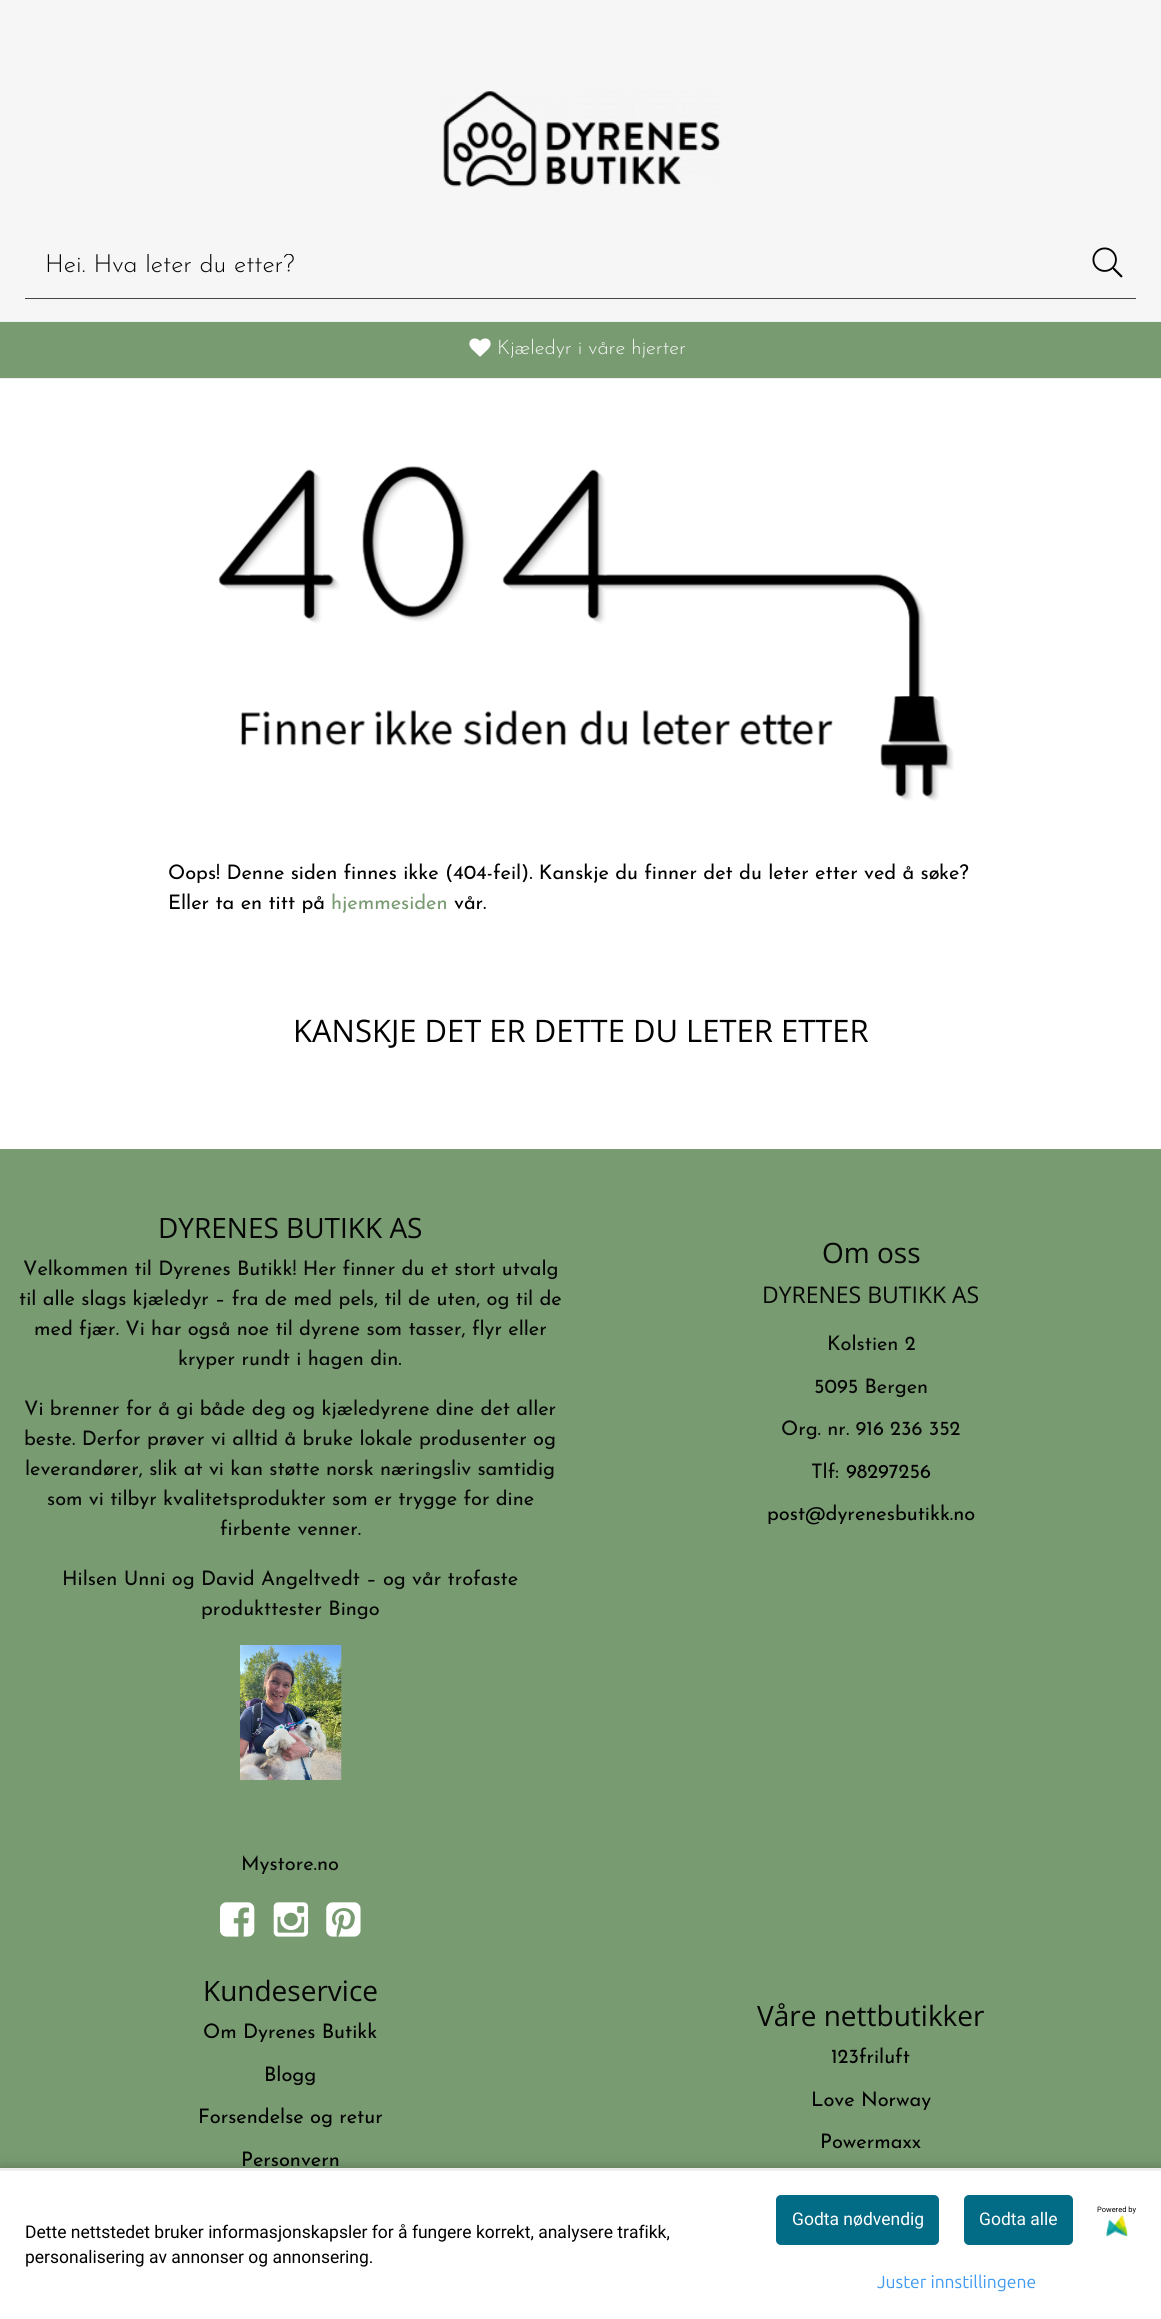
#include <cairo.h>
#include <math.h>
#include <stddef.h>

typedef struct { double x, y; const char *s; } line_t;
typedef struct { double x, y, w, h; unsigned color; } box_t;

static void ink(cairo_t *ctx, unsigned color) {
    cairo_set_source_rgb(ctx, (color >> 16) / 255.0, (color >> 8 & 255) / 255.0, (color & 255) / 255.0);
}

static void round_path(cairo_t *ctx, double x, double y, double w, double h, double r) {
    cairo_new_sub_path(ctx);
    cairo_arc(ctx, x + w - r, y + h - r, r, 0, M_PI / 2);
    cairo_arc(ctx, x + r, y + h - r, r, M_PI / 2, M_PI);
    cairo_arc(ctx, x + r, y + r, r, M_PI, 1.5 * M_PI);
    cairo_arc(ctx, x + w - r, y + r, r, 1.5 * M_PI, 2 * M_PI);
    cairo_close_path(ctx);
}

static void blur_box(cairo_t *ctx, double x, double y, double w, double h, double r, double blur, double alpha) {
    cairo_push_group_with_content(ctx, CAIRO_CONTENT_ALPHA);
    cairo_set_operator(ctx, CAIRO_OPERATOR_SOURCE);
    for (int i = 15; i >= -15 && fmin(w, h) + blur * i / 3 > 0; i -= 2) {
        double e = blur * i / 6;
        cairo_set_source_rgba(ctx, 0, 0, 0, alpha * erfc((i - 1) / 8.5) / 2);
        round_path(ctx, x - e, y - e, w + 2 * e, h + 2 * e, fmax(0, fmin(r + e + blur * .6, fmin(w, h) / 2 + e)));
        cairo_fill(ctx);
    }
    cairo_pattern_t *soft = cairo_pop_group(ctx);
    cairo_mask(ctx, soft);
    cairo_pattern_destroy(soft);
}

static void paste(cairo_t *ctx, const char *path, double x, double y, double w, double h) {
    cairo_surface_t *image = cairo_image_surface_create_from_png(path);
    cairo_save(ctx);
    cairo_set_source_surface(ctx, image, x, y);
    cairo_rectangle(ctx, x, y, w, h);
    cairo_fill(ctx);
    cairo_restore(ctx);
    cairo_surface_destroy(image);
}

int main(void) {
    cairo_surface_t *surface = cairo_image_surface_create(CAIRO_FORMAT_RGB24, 1161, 2319);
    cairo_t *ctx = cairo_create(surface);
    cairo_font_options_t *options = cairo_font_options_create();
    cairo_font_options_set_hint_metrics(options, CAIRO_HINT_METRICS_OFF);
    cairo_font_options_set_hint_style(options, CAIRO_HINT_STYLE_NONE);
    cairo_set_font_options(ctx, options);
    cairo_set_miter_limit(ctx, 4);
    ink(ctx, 0xFFFFFF);
    cairo_paint(ctx);
    ink(ctx, 0xF6F6F6);
    cairo_rectangle(ctx, 0, 0, 1161, 321);
    cairo_fill(ctx);
    paste(ctx, "media/1.png", 443, 91, 278, 97);
    ink(ctx, 0x444444);
    cairo_rectangle(ctx, 25, 298, 1111, 1);
    cairo_fill(ctx);
    cairo_save(ctx);
    cairo_rectangle(ctx, 45, 254, 1009, 25);
    cairo_clip(ctx);
    cairo_select_font_face(ctx, "Josefin Sans Light", CAIRO_FONT_SLANT_NORMAL, CAIRO_FONT_WEIGHT_NORMAL);
    cairo_set_font_size(ctx, 25);
    ink(ctx, 0x050605);
    cairo_move_to(ctx, 45, 272);
    cairo_show_text(ctx, "Hei. Hva leter du etter?");
    cairo_restore(ctx);
    paste(ctx, "media/2.png", 1092, 247, 31, 31);
    {
        static const box_t items[] = {
            {0, 322, 1161, 56, 0x789B71},
            {0, 321, 1161, 1, 0xEEEEEE},
            {0, 378, 1161, 1, 0xEEEEEE},
        };
        for (size_t i = 0; i < sizeof items / sizeof *items; i++) {
            ink(ctx, items[i].color);
            cairo_rectangle(ctx, items[i].x, items[i].y, items[i].w, items[i].h);
            cairo_fill(ctx);
        }
    }
    paste(ctx, "media/3.png", 469, 338, 22, 19);
    cairo_select_font_face(ctx, "Josefin Sans Light", CAIRO_FONT_SLANT_NORMAL, CAIRO_FONT_WEIGHT_NORMAL);
    cairo_set_font_size(ctx, 20);
    ink(ctx, 0xF6F6F6);
    cairo_move_to(ctx, 497, 354);
    cairo_show_text(ctx, "Kjæledyr i våre hjerter");
    paste(ctx, "media/4.png", 218, 466, 736, 335);
    cairo_select_font_face(ctx, "Josefin Sans", CAIRO_FONT_SLANT_NORMAL, CAIRO_FONT_WEIGHT_NORMAL);
    ink(ctx, 0x000000);
    cairo_move_to(ctx, 168, 879);
    cairo_show_text(ctx, "Oops! Denne siden finnes ikke (404-feil). Kanskje du finner det du leter etter ved å søke?");
    cairo_move_to(ctx, 168, 909);
    cairo_show_text(ctx, "Eller ta en titt på");
    ink(ctx, 0x789B71);
    cairo_move_to(ctx, 331, 909);
    cairo_show_text(ctx, "hjemmesiden");
    ink(ctx, 0x000000);
    cairo_move_to(ctx, 454, 909);
    cairo_show_text(ctx, "vår.");
    cairo_select_font_face(ctx, "Open Sans", CAIRO_FONT_SLANT_NORMAL, CAIRO_FONT_WEIGHT_NORMAL);
    cairo_set_font_size(ctx, 31);
    cairo_move_to(ctx, 293, 1042);
    cairo_show_text(ctx, "KANSKJE DET ER DETTE DU LETER ETTER");
    ink(ctx, 0x789B71);
    cairo_rectangle(ctx, 0, 1149, 1161, 1019);
    cairo_fill(ctx);
    cairo_set_font_size(ctx, 28);
    ink(ctx, 0x050605);
    cairo_move_to(ctx, 158, 1238);
    cairo_show_text(ctx, "DYRENES BUTIKK AS");
    cairo_select_font_face(ctx, "Josefin Sans", CAIRO_FONT_SLANT_NORMAL, CAIRO_FONT_WEIGHT_NORMAL);
    cairo_set_font_size(ctx, 20);
    {
        static const line_t items[] = {
            {23, 1275, "Velkommen til Dyrenes Butikk! Her finner du et stort utvalg"},
            {19, 1305, "til alle slags kjæledyr – fra de med pels, til de uten, og til de"},
            {34, 1335, "med fjær. Vi har også noe til dyrene som tasser, flyr eller"},
            {178, 1365, "kryper rundt i hagen din."},
            {24, 1415, "Vi brenner for å gi både deg og kjæledyrene dine det aller"},
            {24, 1445, "beste. Derfor prøver vi alltid å bruke lokale produsenter og"},
            {25, 1475, "leverandører, slik at vi kan støtte norsk næringsliv samtidig"},
            {47, 1505, "som vi tilbyr kvalitetsprodukter som er trygge for dine"},
            {220, 1535, "firbente venner."},
            {62, 1585, "Hilsen Unni og David Angeltvedt – og vår trofaste"},
            {201, 1615, "produkttester Bingo"},
        };
        for (size_t i = 0; i < sizeof items / sizeof *items; i++) {
            cairo_move_to(ctx, items[i].x, items[i].y);
            cairo_show_text(ctx, items[i].s);
        }
    }
    paste(ctx, "media/5.png", 240, 1645, 102, 135);
    cairo_move_to(ctx, 241, 1870);
    cairo_show_text(ctx, "Mystore.no");
    paste(ctx, "media/6.png", 220, 1902, 35, 35);
    paste(ctx, "media/7.png", 273, 1902, 36, 35);
    paste(ctx, "media/8.png", 326, 1902, 35, 35);
    cairo_select_font_face(ctx, "Open Sans", CAIRO_FONT_SLANT_NORMAL, CAIRO_FONT_WEIGHT_NORMAL);
    cairo_set_font_size(ctx, 28);
    cairo_move_to(ctx, 822, 1263);
    cairo_show_text(ctx, "Om oss");
    cairo_set_font_size(ctx, 23);
    cairo_move_to(ctx, 762, 1303);
    cairo_show_text(ctx, "DYRENES BUTIKK AS");
    cairo_select_font_face(ctx, "Josefin Sans", CAIRO_FONT_SLANT_NORMAL, CAIRO_FONT_WEIGHT_NORMAL);
    cairo_set_font_size(ctx, 20);
    {
        static const line_t items[] = {
            {827, 1350, "Kolstien 2"},
            {814, 1393, "5095 Bergen"},
            {781, 1435, "Org. nr. 916 236 352"},
            {811, 1478, "Tlf:"},
        };
        for (size_t i = 0; i < sizeof items / sizeof *items; i++) {
            cairo_move_to(ctx, items[i].x, items[i].y);
            cairo_show_text(ctx, items[i].s);
        }
    }
    ink(ctx, 0x000000);
    cairo_move_to(ctx, 846, 1478);
    cairo_show_text(ctx, "98297256");
    cairo_move_to(ctx, 767, 1520);
    cairo_show_text(ctx, "post@dyrenesbutikk.no");
    cairo_select_font_face(ctx, "Open Sans", CAIRO_FONT_SLANT_NORMAL, CAIRO_FONT_WEIGHT_NORMAL);
    cairo_set_font_size(ctx, 28);
    ink(ctx, 0x050605);
    cairo_move_to(ctx, 203, 2001);
    cairo_show_text(ctx, "Kundeservice");
    cairo_select_font_face(ctx, "Josefin Sans", CAIRO_FONT_SLANT_NORMAL, CAIRO_FONT_WEIGHT_NORMAL);
    cairo_set_font_size(ctx, 20);
    ink(ctx, 0x000000);
    {
        static const line_t items[] = {
            {203, 2038, "Om Dyrenes Butikk"},
            {264, 2081, "Blogg"},
            {198, 2123, "Forsendelse og retur"},
            {241, 2166, "Personvern"},
        };
        for (size_t i = 0; i < sizeof items / sizeof *items; i++) {
            cairo_move_to(ctx, items[i].x, items[i].y);
            cairo_show_text(ctx, items[i].s);
        }
    }
    cairo_select_font_face(ctx, "Open Sans", CAIRO_FONT_SLANT_NORMAL, CAIRO_FONT_WEIGHT_NORMAL);
    cairo_set_font_size(ctx, 28);
    ink(ctx, 0x050605);
    cairo_move_to(ctx, 757, 2026);
    cairo_show_text(ctx, "Våre nettbutikker");
    cairo_select_font_face(ctx, "Josefin Sans", CAIRO_FONT_SLANT_NORMAL, CAIRO_FONT_WEIGHT_NORMAL);
    cairo_set_font_size(ctx, 20);
    ink(ctx, 0x000000);
    {
        static const line_t items[] = {
            {831, 2063, "123friluft"},
            {811, 2106, "Love Norway"},
            {820, 2148, "Powermaxx"},
        };
        for (size_t i = 0; i < sizeof items / sizeof *items; i++) {
            cairo_move_to(ctx, items[i].x, items[i].y);
            cairo_show_text(ctx, items[i].s);
        }
    }
    ink(ctx, 0x000000);
    blur_box(ctx, 0, 2168, 1161, 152, 0, 6, 0.25);
    ink(ctx, 0xFFFFFF);
    cairo_rectangle(ctx, 0, 2171, 1161, 148);
    cairo_fill(ctx);
    ink(ctx, 0xEEEEEE);
    cairo_rectangle(ctx, 0, 2168, 1161, 3);
    cairo_fill(ctx);
    cairo_select_font_face(ctx, "Roboto", CAIRO_FONT_SLANT_NORMAL, CAIRO_FONT_WEIGHT_NORMAL);
    cairo_set_font_size(ctx, 17.5);
    ink(ctx, 0x000000);
    cairo_move_to(ctx, 25, 2238);
    cairo_show_text(ctx, "Dette nettstedet bruker informasjonskapsler for å fungere korrekt, analysere trafikk,");
    cairo_move_to(ctx, 25, 2263);
    cairo_show_text(ctx, "personalisering av annonser og annonsering.");
    cairo_set_font_size(ctx, 7.5);
    cairo_move_to(ctx, 1097, 2212);
    cairo_show_text(ctx, "Powered by");
    paste(ctx, "media/9.png", 1106, 2214, 22, 23);
    ink(ctx, 0x026B85);
    round_path(ctx, 776, 2195, 163, 50, 5);
    cairo_fill(ctx);
    cairo_set_font_size(ctx, 17.5);
    ink(ctx, 0xFFFFFF);
    cairo_move_to(ctx, 792, 2225);
    cairo_show_text(ctx, "Godta nødvendig");
    ink(ctx, 0x026B85);
    round_path(ctx, 964, 2195, 109, 50, 5);
    cairo_fill(ctx);
    ink(ctx, 0xFFFFFF);
    cairo_move_to(ctx, 979, 2225);
    cairo_show_text(ctx, "Godta alle");
    cairo_select_font_face(ctx, "Ubuntu", CAIRO_FONT_SLANT_NORMAL, CAIRO_FONT_WEIGHT_NORMAL);
    ink(ctx, 0x409AEF);
    cairo_move_to(ctx, 877, 2288);
    cairo_show_text(ctx, "Juster innstillingene");
    cairo_surface_write_to_png(surface, "image.png");
    cairo_font_options_destroy(options);
    cairo_destroy(ctx);
    cairo_surface_destroy(surface);
    return 0;
}
